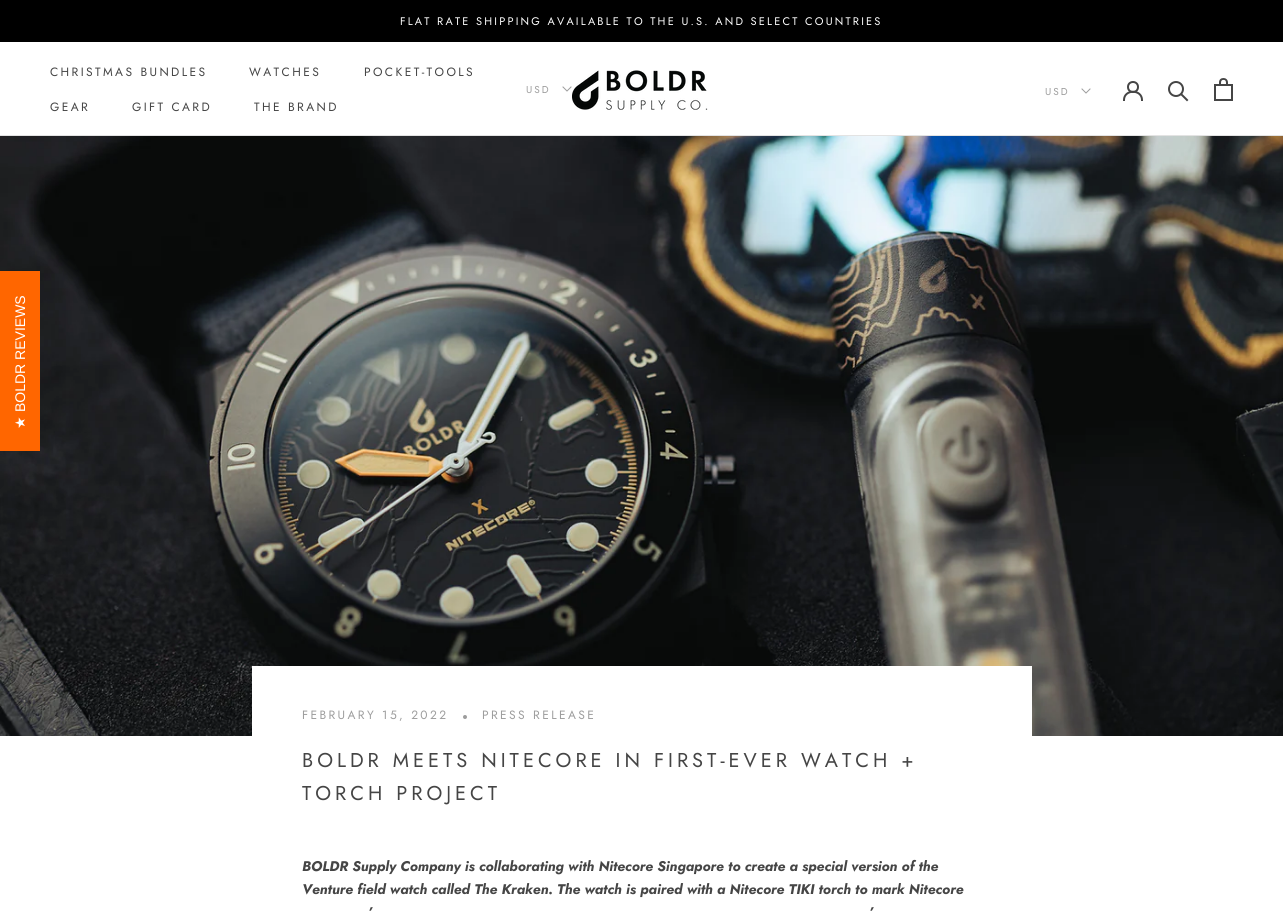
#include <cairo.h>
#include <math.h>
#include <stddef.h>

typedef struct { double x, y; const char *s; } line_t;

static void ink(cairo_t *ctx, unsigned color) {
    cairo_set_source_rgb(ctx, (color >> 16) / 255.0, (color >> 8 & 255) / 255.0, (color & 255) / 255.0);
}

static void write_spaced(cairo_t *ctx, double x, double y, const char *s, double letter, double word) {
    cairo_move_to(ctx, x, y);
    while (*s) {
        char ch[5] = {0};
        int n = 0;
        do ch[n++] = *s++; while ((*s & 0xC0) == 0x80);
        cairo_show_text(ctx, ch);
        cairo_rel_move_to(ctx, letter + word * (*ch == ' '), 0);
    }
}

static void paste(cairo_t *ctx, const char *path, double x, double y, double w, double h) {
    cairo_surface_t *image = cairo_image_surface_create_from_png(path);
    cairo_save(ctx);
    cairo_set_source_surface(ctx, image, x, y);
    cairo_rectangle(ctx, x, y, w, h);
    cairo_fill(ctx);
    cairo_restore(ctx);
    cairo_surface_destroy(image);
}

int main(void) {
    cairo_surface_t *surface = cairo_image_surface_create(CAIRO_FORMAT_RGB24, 1283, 912);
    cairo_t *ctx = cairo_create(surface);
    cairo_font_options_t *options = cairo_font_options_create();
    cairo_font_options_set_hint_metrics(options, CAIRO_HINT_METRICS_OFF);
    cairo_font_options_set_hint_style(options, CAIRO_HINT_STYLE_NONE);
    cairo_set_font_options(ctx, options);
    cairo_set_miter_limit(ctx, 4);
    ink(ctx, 0xFFFFFF);
    cairo_paint(ctx);
    paste(ctx, "media/3.png", 0, 136, 1283, 600);
    ink(ctx, 0xFF6600);
    cairo_rectangle(ctx, 0, 271, 40, 180);
    cairo_fill(ctx);
    cairo_select_font_face(ctx, "Liberation Sans", CAIRO_FONT_SLANT_NORMAL, CAIRO_FONT_WEIGHT_NORMAL);
    cairo_set_font_size(ctx, 14);
    ink(ctx, 0xFFFFFF);
    cairo_save(ctx);
    cairo_translate(ctx, 25, 412);
    cairo_rotate(ctx, -90 * M_PI / 180);
    cairo_move_to(ctx, 0, 0);
    cairo_show_text(ctx, "BOLDR REVIEWS");
    cairo_restore(ctx);
    cairo_select_font_face(ctx, "DejaVu Sans", CAIRO_FONT_SLANT_NORMAL, CAIRO_FONT_WEIGHT_NORMAL);
    cairo_save(ctx);
    cairo_translate(ctx, 25, 429);
    cairo_rotate(ctx, -90 * M_PI / 180);
    cairo_move_to(ctx, 0, 0);
    cairo_show_text(ctx, "★");
    cairo_restore(ctx);
    ink(ctx, 0x000000);
    cairo_rectangle(ctx, 0, 0, 1283, 42);
    cairo_fill(ctx);
    cairo_select_font_face(ctx, "Jost", CAIRO_FONT_SLANT_NORMAL, CAIRO_FONT_WEIGHT_NORMAL);
    cairo_set_font_size(ctx, 11);
    ink(ctx, 0xFFFFFF);
    write_spaced(ctx, 400, 25, "FLAT RATE SHIPPING AVAILABLE TO THE U.S. AND SELECT COUNTRIES", 2.2, 0);
    ink(ctx, 0xE3E3E3);
    cairo_rectangle(ctx, 0, 135, 1283, 1);
    cairo_fill(ctx);
    cairo_set_font_size(ctx, 12);
    ink(ctx, 0x454545);
    {
        static const line_t items[] = {
            {50, 76, "CHRISTMAS BUNDLES"},
            {249, 76, "WATCHES"},
            {364, 76, "POCKET-TOOLS"},
            {50, 111, "GEAR"},
            {132, 111, "GIFT CARD"},
            {254, 111, "THE BRAND"},
        };
        for (size_t i = 0; i < sizeof items / sizeof *items; i++) {
            write_spaced(ctx, items[i].x, items[i].y, items[i].s, 2.4, 0);
        }
    }
    cairo_set_font_size(ctx, 10);
    ink(ctx, 0x9D9D9D);
    write_spaced(ctx, 526, 93, "USD", 2, 0);
    cairo_new_path(ctx);
    cairo_move_to(ctx, 571, 87);
    cairo_line_to(ctx, 567, 91);
    cairo_line_to(ctx, 563, 87);
    cairo_set_line_width(ctx, 1);
    cairo_set_line_cap(ctx, CAIRO_LINE_CAP_SQUARE);
    cairo_stroke(ctx);
    paste(ctx, "media/1.png", 572, 70, 136, 40);
    write_spaced(ctx, 1045, 95, "USD", 2, 0);
    cairo_new_path(ctx);
    cairo_move_to(ctx, 1090, 89);
    cairo_line_to(ctx, 1086, 93);
    cairo_line_to(ctx, 1082, 89);
    cairo_stroke(ctx);
    cairo_new_path(ctx);
    cairo_move_to(ctx, 1124, 100);
    cairo_curve_to(ctx, 1124, 89, 1142, 89, 1142, 100);
    ink(ctx, 0x454545);
    cairo_set_line_width(ctx, 2);
    cairo_stroke(ctx);
    cairo_arc(ctx, 1133, 87, 5, 0, 2 * M_PI);
    cairo_set_line_cap(ctx, CAIRO_LINE_CAP_BUTT);
    cairo_stroke(ctx);
    cairo_new_path(ctx);
    cairo_move_to(ctx, 1187, 100);
    cairo_line_to(ctx, 1181.5, 94.5);
    cairo_set_line_cap(ctx, CAIRO_LINE_CAP_SQUARE);
    cairo_stroke(ctx);
    cairo_arc(ctx, 1176, 89, 7, 0, 2 * M_PI);
    cairo_set_line_cap(ctx, CAIRO_LINE_CAP_BUTT);
    cairo_stroke(ctx);
    paste(ctx, "media/2.png", 1214, 78, 19, 23);
    ink(ctx, 0xFFFFFF);
    cairo_rectangle(ctx, 252, 666, 780, 70);
    cairo_fill(ctx);
    cairo_set_font_size(ctx, 12);
    ink(ctx, 0x9D9D9D);
    write_spaced(ctx, 302, 719, "FEBRUARY 15, 2022", 2.4, 0);
    cairo_new_path(ctx);
    cairo_arc(ctx, 465, 717, 2, 0, 2 * M_PI);
    cairo_fill(ctx);
    write_spaced(ctx, 482, 719, "PRESS RELEASE", 2.4, 0);
    cairo_set_font_size(ctx, 20);
    ink(ctx, 0x454545);
    write_spaced(ctx, 302, 767, "BOLDR MEETS NITECORE IN FIRST-EVER WATCH +", 4, 0);
    write_spaced(ctx, 302, 800, "TORCH PROJECT", 4, 0);
    cairo_select_font_face(ctx, "Jost", CAIRO_FONT_SLANT_ITALIC, CAIRO_FONT_WEIGHT_BOLD);
    cairo_set_font_size(ctx, 14);
    {
        static const line_t items[] = {
            {302, 871, "BOLDR Supply Company is collaborating with Nitecore Singapore to create a special version of the"},
            {302, 894, "Venture field watch called The Kraken. The watch is paired with a Nitecore TIKI torch to mark Nitecore"},
            {368, 917, "’"},
            {869, 917, "’"},
        };
        for (size_t i = 0; i < sizeof items / sizeof *items; i++) {
            cairo_move_to(ctx, items[i].x, items[i].y);
            cairo_show_text(ctx, items[i].s);
        }
    }
    cairo_surface_write_to_png(surface, "image.png");
    cairo_font_options_destroy(options);
    cairo_destroy(ctx);
    cairo_surface_destroy(surface);
    return 0;
}
